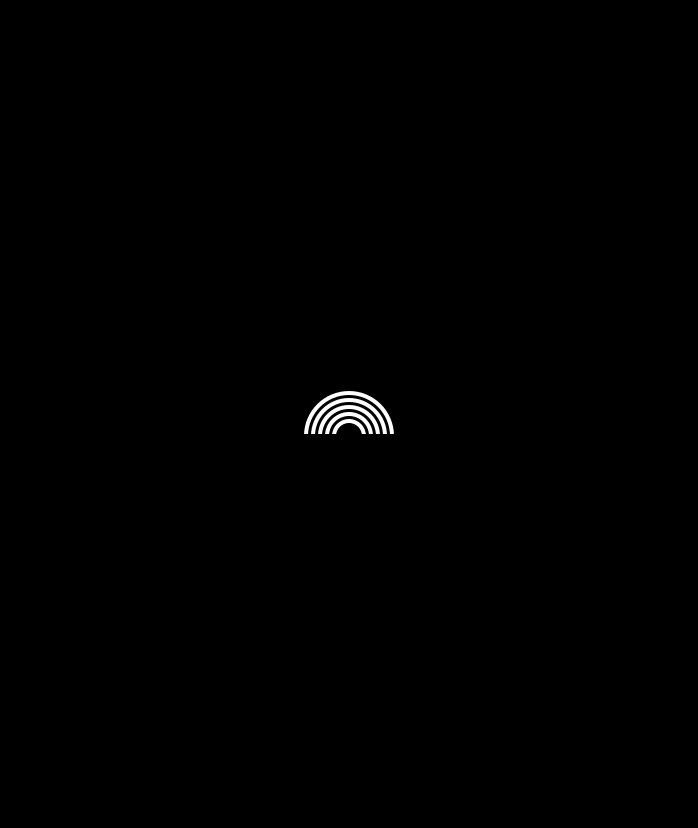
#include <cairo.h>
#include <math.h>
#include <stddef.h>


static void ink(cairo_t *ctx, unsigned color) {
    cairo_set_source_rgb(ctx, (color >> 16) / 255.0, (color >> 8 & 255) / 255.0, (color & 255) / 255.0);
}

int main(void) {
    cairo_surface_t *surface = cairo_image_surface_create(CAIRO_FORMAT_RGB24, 698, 828);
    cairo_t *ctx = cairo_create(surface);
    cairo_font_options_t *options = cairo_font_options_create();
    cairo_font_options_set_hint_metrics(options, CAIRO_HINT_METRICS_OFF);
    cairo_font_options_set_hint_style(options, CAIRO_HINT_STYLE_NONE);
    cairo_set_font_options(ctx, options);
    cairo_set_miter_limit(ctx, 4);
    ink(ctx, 0x000000);
    cairo_paint(ctx);
    cairo_save(ctx);
    cairo_rectangle(ctx, 299, 384, 100, 50);
    cairo_clip(ctx);
    cairo_arc(ctx, 349, 436, 43, 0, 2 * M_PI);
    ink(ctx, 0xFFFFFF);
    cairo_set_line_width(ctx, 4);
    cairo_stroke(ctx);
    cairo_arc(ctx, 349, 436, 36, 0, 2 * M_PI);
    cairo_stroke(ctx);
    cairo_arc(ctx, 349, 436, 29, 0, 2 * M_PI);
    cairo_stroke(ctx);
    cairo_arc(ctx, 349, 436, 22, 0, 2 * M_PI);
    cairo_stroke(ctx);
    cairo_arc(ctx, 349, 436, 15, 0, 2 * M_PI);
    cairo_stroke(ctx);
    cairo_restore(ctx);
    cairo_surface_write_to_png(surface, "image.png");
    cairo_font_options_destroy(options);
    cairo_destroy(ctx);
    cairo_surface_destroy(surface);
    return 0;
}
